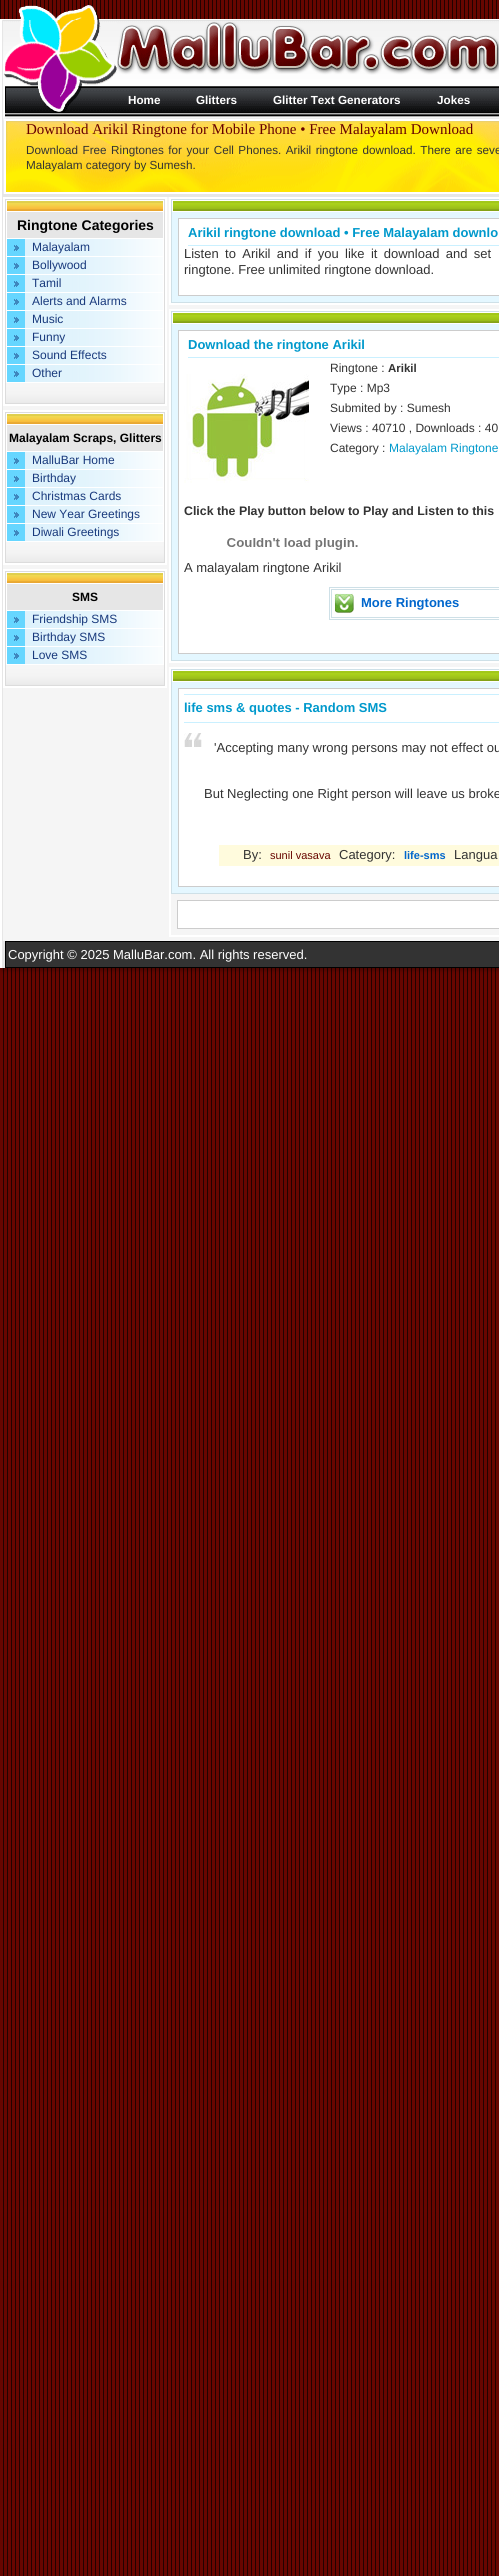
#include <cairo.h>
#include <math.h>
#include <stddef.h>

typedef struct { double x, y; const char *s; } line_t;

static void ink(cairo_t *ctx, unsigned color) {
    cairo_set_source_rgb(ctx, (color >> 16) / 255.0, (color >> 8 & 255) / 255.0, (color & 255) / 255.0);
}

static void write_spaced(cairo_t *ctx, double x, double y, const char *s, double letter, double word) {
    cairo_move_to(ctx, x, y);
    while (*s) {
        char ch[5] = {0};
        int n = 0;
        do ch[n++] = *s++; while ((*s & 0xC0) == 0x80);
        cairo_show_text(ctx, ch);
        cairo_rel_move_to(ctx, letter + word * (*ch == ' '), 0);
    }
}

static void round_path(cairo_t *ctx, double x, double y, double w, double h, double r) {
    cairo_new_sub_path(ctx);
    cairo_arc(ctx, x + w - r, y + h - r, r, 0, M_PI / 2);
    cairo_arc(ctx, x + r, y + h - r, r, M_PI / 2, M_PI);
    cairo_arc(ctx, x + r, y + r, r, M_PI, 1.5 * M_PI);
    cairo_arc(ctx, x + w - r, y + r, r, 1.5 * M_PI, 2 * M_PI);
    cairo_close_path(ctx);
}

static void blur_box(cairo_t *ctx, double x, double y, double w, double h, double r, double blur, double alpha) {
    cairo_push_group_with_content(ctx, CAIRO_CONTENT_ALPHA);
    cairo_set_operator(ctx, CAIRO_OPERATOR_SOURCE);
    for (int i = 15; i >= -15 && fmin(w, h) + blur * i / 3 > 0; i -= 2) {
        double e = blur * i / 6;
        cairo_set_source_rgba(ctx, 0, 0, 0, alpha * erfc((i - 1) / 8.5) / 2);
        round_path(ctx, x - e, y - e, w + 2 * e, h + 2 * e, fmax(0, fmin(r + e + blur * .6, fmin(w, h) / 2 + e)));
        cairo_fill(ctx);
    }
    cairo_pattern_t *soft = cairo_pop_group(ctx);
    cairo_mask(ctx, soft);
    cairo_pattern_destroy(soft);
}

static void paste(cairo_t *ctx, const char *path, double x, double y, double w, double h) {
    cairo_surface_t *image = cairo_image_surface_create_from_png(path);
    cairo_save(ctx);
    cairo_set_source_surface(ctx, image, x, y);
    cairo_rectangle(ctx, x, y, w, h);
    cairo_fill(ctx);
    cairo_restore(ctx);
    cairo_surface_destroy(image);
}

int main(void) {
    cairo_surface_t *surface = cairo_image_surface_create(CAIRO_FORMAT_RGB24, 499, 2576);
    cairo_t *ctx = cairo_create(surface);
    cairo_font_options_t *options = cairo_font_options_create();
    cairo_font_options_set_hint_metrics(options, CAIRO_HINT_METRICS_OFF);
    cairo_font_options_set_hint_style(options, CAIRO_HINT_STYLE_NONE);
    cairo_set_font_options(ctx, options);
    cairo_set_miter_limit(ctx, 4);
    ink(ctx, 0xFFFFFF);
    cairo_paint(ctx);
    paste(ctx, "media/1.png", 0, 968, 499, 1608);
    ink(ctx, 0x000000);
    blur_box(ctx, 2, 2, 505, 968, 0, 2.5, 0.3);
    ink(ctx, 0xE6E6E6);
    cairo_rectangle(ctx, 2, 20, 497, 948);
    cairo_fill(ctx);
    ink(ctx, 0xFFFFFF);
    cairo_rectangle(ctx, 0, 20, 2, 948);
    cairo_fill(ctx);
    paste(ctx, "media/2.png", 0, 0, 499, 20);
    paste(ctx, "media/3.png", 3, 20, 496, 174);
    paste(ctx, "media/4.png", 117, 22, 382, 53);
    paste(ctx, "media/5.png", 5, 87, 494, 25);
    cairo_select_font_face(ctx, "Liberation Sans", CAIRO_FONT_SLANT_NORMAL, CAIRO_FONT_WEIGHT_BOLD);
    cairo_set_font_size(ctx, 11.7);
    {
        static const line_t items[] = {
            {128, 104, "Home"},
            {196, 104, "Glitters"},
            {273, 104, "Glitter Text Generators"},
            {437, 104, "Jokes"},
        };
        for (size_t i = 0; i < sizeof items / sizeof *items; i++) {
            cairo_move_to(ctx, items[i].x, items[i].y);
            cairo_show_text(ctx, items[i].s);
        }
    }
    paste(ctx, "media/6.png", 6, 121, 493, 71);
    cairo_rectangle(ctx, 5, 120, 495, 73);
    cairo_stroke(ctx);
    cairo_select_font_face(ctx, "Liberation Serif", CAIRO_FONT_SLANT_NORMAL, CAIRO_FONT_WEIGHT_NORMAL);
    cairo_set_font_size(ctx, 15);
    ink(ctx, 0x660000);
    cairo_move_to(ctx, 26, 134);
    cairo_show_text(ctx, "Download Arikil Ringtone for Mobile Phone • Free Malayalam Download");
    cairo_select_font_face(ctx, "Liberation Sans", CAIRO_FONT_SLANT_NORMAL, CAIRO_FONT_WEIGHT_NORMAL);
    cairo_set_font_size(ctx, 11.7);
    ink(ctx, 0x333333);
    write_spaced(ctx, 26, 154, "Download Free Ringtones for your Cell Phones. Arikil ringtone download. There are seve", 0, 1.25);
    cairo_move_to(ctx, 26, 169);
    cairo_show_text(ctx, "Malayalam category by Sumesh.");
    ink(ctx, 0xF5F5F5);
    cairo_rectangle(ctx, 3, 197, 496, 744);
    cairo_fill(ctx);
    cairo_rectangle(ctx, 4, 198, 162, 207);
    ink(ctx, 0xFFFFFF);
    cairo_stroke(ctx);
    cairo_rectangle(ctx, 6, 212, 158, 171);
    cairo_fill(ctx);
    cairo_rectangle(ctx, 5.5, 199.5, 159, 204);
    ink(ctx, 0xDCDCDC);
    cairo_set_line_width(ctx, 1);
    cairo_stroke(ctx);
    paste(ctx, "media/7.png", 7, 201, 156, 10);
    cairo_rectangle(ctx, 6.5, 200.5, 157, 11);
    ink(ctx, 0xFFFFFF);
    cairo_stroke(ctx);
    ink(ctx, 0xE6E6E6);
    cairo_rectangle(ctx, 7, 212, 156, 26);
    cairo_fill(ctx);
    cairo_select_font_face(ctx, "Liberation Sans", CAIRO_FONT_SLANT_NORMAL, CAIRO_FONT_WEIGHT_BOLD);
    cairo_set_font_size(ctx, 14);
    ink(ctx, 0x000000);
    cairo_move_to(ctx, 17, 230);
    cairo_show_text(ctx, "Ringtone Categories");
    paste(ctx, "media/8.png", 6, 383, 158, 20);
    paste(ctx, "media/9.png", 7, 239, 156, 17);
    cairo_select_font_face(ctx, "Liberation Sans", CAIRO_FONT_SLANT_NORMAL, CAIRO_FONT_WEIGHT_NORMAL);
    cairo_set_font_size(ctx, 12);
    ink(ctx, 0x18397C);
    cairo_move_to(ctx, 32, 251);
    cairo_show_text(ctx, "Malayalam");
    paste(ctx, "media/9.png", 7, 257, 156, 17);
    cairo_move_to(ctx, 32, 269);
    cairo_show_text(ctx, "Bollywood");
    paste(ctx, "media/9.png", 7, 275, 156, 17);
    cairo_move_to(ctx, 32, 287);
    cairo_show_text(ctx, "Tamil");
    paste(ctx, "media/9.png", 7, 293, 156, 17);
    cairo_move_to(ctx, 32, 305);
    cairo_show_text(ctx, "Alerts and Alarms");
    paste(ctx, "media/9.png", 7, 311, 156, 17);
    cairo_move_to(ctx, 32, 323);
    cairo_show_text(ctx, "Music");
    paste(ctx, "media/9.png", 7, 329, 156, 17);
    cairo_move_to(ctx, 32, 341);
    cairo_show_text(ctx, "Funny");
    paste(ctx, "media/9.png", 7, 347, 156, 17);
    cairo_move_to(ctx, 32, 359);
    cairo_show_text(ctx, "Sound Effects");
    paste(ctx, "media/9.png", 7, 365, 156, 17);
    cairo_move_to(ctx, 32, 377);
    cairo_show_text(ctx, "Other");
    cairo_rectangle(ctx, 4, 411, 162, 153);
    ink(ctx, 0xFFFFFF);
    cairo_set_line_width(ctx, 2);
    cairo_stroke(ctx);
    cairo_rectangle(ctx, 6, 425, 158, 117);
    cairo_fill(ctx);
    cairo_rectangle(ctx, 5.5, 412.5, 159, 150);
    ink(ctx, 0xDCDCDC);
    cairo_set_line_width(ctx, 1);
    cairo_stroke(ctx);
    paste(ctx, "media/7.png", 7, 414, 156, 10);
    cairo_rectangle(ctx, 6.5, 413.5, 157, 11);
    ink(ctx, 0xFFFFFF);
    cairo_stroke(ctx);
    ink(ctx, 0xE6E6E6);
    cairo_rectangle(ctx, 7, 425, 156, 26);
    cairo_fill(ctx);
    cairo_select_font_face(ctx, "Liberation Sans", CAIRO_FONT_SLANT_NORMAL, CAIRO_FONT_WEIGHT_BOLD);
    ink(ctx, 0x000000);
    cairo_move_to(ctx, 9, 442);
    cairo_show_text(ctx, "Malayalam Scraps, Glitters");
    paste(ctx, "media/8.png", 6, 542, 158, 20);
    paste(ctx, "media/9.png", 7, 452, 156, 17);
    cairo_select_font_face(ctx, "Liberation Sans", CAIRO_FONT_SLANT_NORMAL, CAIRO_FONT_WEIGHT_NORMAL);
    ink(ctx, 0x18397C);
    cairo_move_to(ctx, 32, 464);
    cairo_show_text(ctx, "MalluBar Home");
    paste(ctx, "media/9.png", 7, 470, 156, 17);
    cairo_move_to(ctx, 32, 482);
    cairo_show_text(ctx, "Birthday");
    paste(ctx, "media/9.png", 7, 488, 156, 17);
    cairo_move_to(ctx, 32, 500);
    cairo_show_text(ctx, "Christmas Cards");
    paste(ctx, "media/9.png", 7, 506, 156, 17);
    cairo_move_to(ctx, 32, 518);
    cairo_show_text(ctx, "New Year Greetings");
    paste(ctx, "media/9.png", 7, 524, 156, 17);
    cairo_move_to(ctx, 32, 536);
    cairo_show_text(ctx, "Diwali Greetings");
    cairo_rectangle(ctx, 4, 570, 162, 117);
    ink(ctx, 0xFFFFFF);
    cairo_set_line_width(ctx, 2);
    cairo_stroke(ctx);
    cairo_rectangle(ctx, 6, 584, 158, 81);
    cairo_fill(ctx);
    cairo_rectangle(ctx, 5.5, 571.5, 159, 114);
    ink(ctx, 0xDCDCDC);
    cairo_set_line_width(ctx, 1);
    cairo_stroke(ctx);
    paste(ctx, "media/7.png", 7, 573, 156, 10);
    cairo_rectangle(ctx, 6.5, 572.5, 157, 11);
    ink(ctx, 0xFFFFFF);
    cairo_stroke(ctx);
    ink(ctx, 0xE6E6E6);
    cairo_rectangle(ctx, 7, 584, 156, 26);
    cairo_fill(ctx);
    cairo_select_font_face(ctx, "Liberation Sans", CAIRO_FONT_SLANT_NORMAL, CAIRO_FONT_WEIGHT_BOLD);
    ink(ctx, 0x000000);
    cairo_move_to(ctx, 72, 601);
    cairo_show_text(ctx, "SMS");
    paste(ctx, "media/8.png", 6, 665, 158, 20);
    paste(ctx, "media/9.png", 7, 611, 156, 17);
    cairo_select_font_face(ctx, "Liberation Sans", CAIRO_FONT_SLANT_NORMAL, CAIRO_FONT_WEIGHT_NORMAL);
    ink(ctx, 0x18397C);
    cairo_move_to(ctx, 32, 623);
    cairo_show_text(ctx, "Friendship SMS");
    paste(ctx, "media/9.png", 7, 629, 156, 17);
    cairo_move_to(ctx, 32, 641);
    cairo_show_text(ctx, "Birthday SMS");
    paste(ctx, "media/9.png", 7, 647, 156, 17);
    cairo_move_to(ctx, 32, 659);
    cairo_show_text(ctx, "Love SMS");
    cairo_rectangle(ctx, 170, 198, 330, 106);
    ink(ctx, 0xFFFFFF);
    cairo_set_line_width(ctx, 2);
    cairo_stroke(ctx);
    ink(ctx, 0xE4F7FF);
    cairo_rectangle(ctx, 172, 212, 327, 90);
    cairo_fill(ctx);
    cairo_rectangle(ctx, 171.5, 199.5, 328, 103);
    ink(ctx, 0xCEE0E7);
    cairo_set_line_width(ctx, 1);
    cairo_stroke(ctx);
    paste(ctx, "media/10.png", 173, 201, 326, 10);
    cairo_rectangle(ctx, 172.5, 200.5, 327, 11);
    ink(ctx, 0xFFFFFF);
    cairo_stroke(ctx);
    cairo_rectangle(ctx, 178.5, 218.5, 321, 77);
    cairo_fill_preserve(ctx);
    ink(ctx, 0xCCCCCC);
    cairo_stroke(ctx);
    ink(ctx, 0xCAF0FF);
    cairo_rectangle(ctx, 188, 245, 311, 1);
    cairo_fill(ctx);
    cairo_select_font_face(ctx, "Liberation Sans", CAIRO_FONT_SLANT_NORMAL, CAIRO_FONT_WEIGHT_BOLD);
    cairo_set_font_size(ctx, 13);
    ink(ctx, 0x0099CC);
    cairo_move_to(ctx, 188, 237);
    cairo_show_text(ctx, "Arikil ringtone download • Free Malayalam downlo");
    cairo_select_font_face(ctx, "Liberation Sans", CAIRO_FONT_SLANT_NORMAL, CAIRO_FONT_WEIGHT_NORMAL);
    ink(ctx, 0x333333);
    write_spaced(ctx, 184, 258, "Listen to Arikil and if you like it download and set", 0, 2.75);
    cairo_move_to(ctx, 184, 274);
    cairo_show_text(ctx, "ringtone. Free unlimited ringtone download.");
    cairo_rectangle(ctx, 170, 310, 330, 352);
    ink(ctx, 0xFFFFFF);
    cairo_set_line_width(ctx, 2);
    cairo_stroke(ctx);
    ink(ctx, 0xE4F7FF);
    cairo_rectangle(ctx, 172, 324, 327, 336);
    cairo_fill(ctx);
    cairo_rectangle(ctx, 171.5, 311.5, 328, 349);
    ink(ctx, 0xCEE0E7);
    cairo_set_line_width(ctx, 1);
    cairo_stroke(ctx);
    paste(ctx, "media/10.png", 173, 313, 326, 10);
    cairo_rectangle(ctx, 172.5, 312.5, 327, 11);
    ink(ctx, 0xFFFFFF);
    cairo_stroke(ctx);
    cairo_rectangle(ctx, 178.5, 330.5, 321, 323);
    cairo_fill_preserve(ctx);
    ink(ctx, 0xCCCCCC);
    cairo_stroke(ctx);
    ink(ctx, 0xCAF0FF);
    cairo_rectangle(ctx, 188, 357, 311, 1);
    cairo_fill(ctx);
    cairo_select_font_face(ctx, "Liberation Sans", CAIRO_FONT_SLANT_NORMAL, CAIRO_FONT_WEIGHT_BOLD);
    ink(ctx, 0x0099CC);
    cairo_move_to(ctx, 188, 349);
    cairo_show_text(ctx, "Download the ringtone Arikil");
    paste(ctx, "media/11.png", 184, 374, 125, 109);
    cairo_select_font_face(ctx, "Liberation Sans", CAIRO_FONT_SLANT_NORMAL, CAIRO_FONT_WEIGHT_NORMAL);
    cairo_set_font_size(ctx, 12);
    ink(ctx, 0x333333);
    cairo_move_to(ctx, 330, 372);
    cairo_show_text(ctx, "Ringtone :");
    cairo_select_font_face(ctx, "Liberation Sans", CAIRO_FONT_SLANT_NORMAL, CAIRO_FONT_WEIGHT_BOLD);
    cairo_set_font_size(ctx, 11.5);
    cairo_move_to(ctx, 388, 372);
    cairo_show_text(ctx, "Arikil");
    cairo_select_font_face(ctx, "Liberation Sans", CAIRO_FONT_SLANT_NORMAL, CAIRO_FONT_WEIGHT_NORMAL);
    cairo_set_font_size(ctx, 12);
    {
        static const line_t items[] = {
            {330, 392, "Type : Mp3"},
            {330, 412, "Submited by : Sumesh"},
            {330, 432, "Views : 40710 , Downloads : 40"},
            {330, 452, "Category :"},
        };
        for (size_t i = 0; i < sizeof items / sizeof *items; i++) {
            cairo_move_to(ctx, items[i].x, items[i].y);
            cairo_show_text(ctx, items[i].s);
        }
    }
    ink(ctx, 0x0099CC);
    cairo_move_to(ctx, 389, 452);
    cairo_show_text(ctx, "Malayalam Ringtone");
    cairo_select_font_face(ctx, "Liberation Sans", CAIRO_FONT_SLANT_NORMAL, CAIRO_FONT_WEIGHT_BOLD);
    cairo_set_font_size(ctx, 12.35);
    ink(ctx, 0x333333);
    cairo_move_to(ctx, 184, 515);
    cairo_show_text(ctx, "Click the Play button below to Play and Listen to this");
    paste(ctx, "media/12.png", 227, 538, 131, 12);
    cairo_select_font_face(ctx, "Liberation Sans", CAIRO_FONT_SLANT_NORMAL, CAIRO_FONT_WEIGHT_NORMAL);
    cairo_set_font_size(ctx, 13);
    cairo_move_to(ctx, 184, 572);
    cairo_show_text(ctx, "A malayalam ringtone Arikil");
    paste(ctx, "media/13.png", 334, 593, 20, 20);
    cairo_rectangle(ctx, 329.5, 587.5, 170, 32);
    ink(ctx, 0xCEE0E7);
    cairo_stroke(ctx);
    cairo_rectangle(ctx, 331.5, 589.5, 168, 28);
    cairo_stroke(ctx);
    cairo_select_font_face(ctx, "Liberation Sans", CAIRO_FONT_SLANT_NORMAL, CAIRO_FONT_WEIGHT_BOLD);
    ink(ctx, 0x0066CC);
    cairo_move_to(ctx, 361, 607);
    cairo_show_text(ctx, "More Ringtones");
    cairo_rectangle(ctx, 170, 668, 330, 268);
    ink(ctx, 0xFFFFFF);
    cairo_set_line_width(ctx, 2);
    cairo_stroke(ctx);
    ink(ctx, 0xE4F7FF);
    cairo_rectangle(ctx, 172, 682, 327, 211);
    cairo_fill(ctx);
    cairo_rectangle(ctx, 171.5, 669.5, 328, 224);
    ink(ctx, 0xCEE0E7);
    cairo_set_line_width(ctx, 1);
    cairo_stroke(ctx);
    paste(ctx, "media/10.png", 173, 671, 326, 10);
    cairo_rectangle(ctx, 172.5, 670.5, 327, 11);
    ink(ctx, 0xFFFFFF);
    cairo_stroke(ctx);
    cairo_rectangle(ctx, 178.5, 688.5, 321, 198);
    cairo_fill_preserve(ctx);
    ink(ctx, 0xCCCCCC);
    cairo_stroke(ctx);
    ink(ctx, 0xCAF0FF);
    cairo_rectangle(ctx, 184, 694, 315, 1);
    cairo_fill(ctx);
    cairo_rectangle(ctx, 184, 722, 315, 1);
    cairo_fill(ctx);
    ink(ctx, 0x0099CC);
    cairo_move_to(ctx, 184, 712);
    cairo_show_text(ctx, "life sms & quotes - Random SMS");
    paste(ctx, "media/14.png", 184, 733, 18, 14);
    cairo_select_font_face(ctx, "Liberation Sans", CAIRO_FONT_SLANT_NORMAL, CAIRO_FONT_WEIGHT_NORMAL);
    ink(ctx, 0x333333);
    cairo_move_to(ctx, 214, 752);
    cairo_show_text(ctx, "'Accepting many wrong persons may not effect ou");
    cairo_move_to(ctx, 204, 798);
    cairo_show_text(ctx, "But Neglecting one Right person will leave us broke");
    ink(ctx, 0xFFFBDD);
    cairo_rectangle(ctx, 219, 845, 280, 21);
    cairo_fill(ctx);
    ink(ctx, 0x333333);
    cairo_move_to(ctx, 243, 859);
    cairo_show_text(ctx, "By:");
    cairo_set_font_size(ctx, 11);
    ink(ctx, 0x680600);
    cairo_move_to(ctx, 270, 859);
    cairo_show_text(ctx, "sunil vasava");
    cairo_set_font_size(ctx, 13);
    ink(ctx, 0x333333);
    cairo_move_to(ctx, 339, 859);
    cairo_show_text(ctx, "Category:");
    cairo_select_font_face(ctx, "Liberation Sans", CAIRO_FONT_SLANT_NORMAL, CAIRO_FONT_WEIGHT_BOLD);
    cairo_set_font_size(ctx, 11);
    ink(ctx, 0x0066CC);
    cairo_move_to(ctx, 404, 859);
    cairo_show_text(ctx, "life-sms");
    cairo_select_font_face(ctx, "Liberation Sans", CAIRO_FONT_SLANT_NORMAL, CAIRO_FONT_WEIGHT_NORMAL);
    cairo_set_font_size(ctx, 13);
    ink(ctx, 0x333333);
    cairo_move_to(ctx, 454, 859);
    cairo_show_text(ctx, "Langua");
    ink(ctx, 0xFFFFFF);
    cairo_rectangle(ctx, 177.5, 900.5, 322, 28);
    cairo_fill_preserve(ctx);
    ink(ctx, 0xCCCCCC);
    cairo_stroke(ctx);
    ink(ctx, 0x333333);
    cairo_rectangle(ctx, 5.5, 941.5, 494, 26);
    cairo_fill_preserve(ctx);
    ink(ctx, 0x000000);
    cairo_stroke(ctx);
    ink(ctx, 0xFFFFFF);
    cairo_move_to(ctx, 8, 959);
    cairo_show_text(ctx, "Copyright © 2025 MalluBar.com. All rights reserved.");
    cairo_surface_write_to_png(surface, "image.png");
    cairo_font_options_destroy(options);
    cairo_destroy(ctx);
    cairo_surface_destroy(surface);
    return 0;
}
